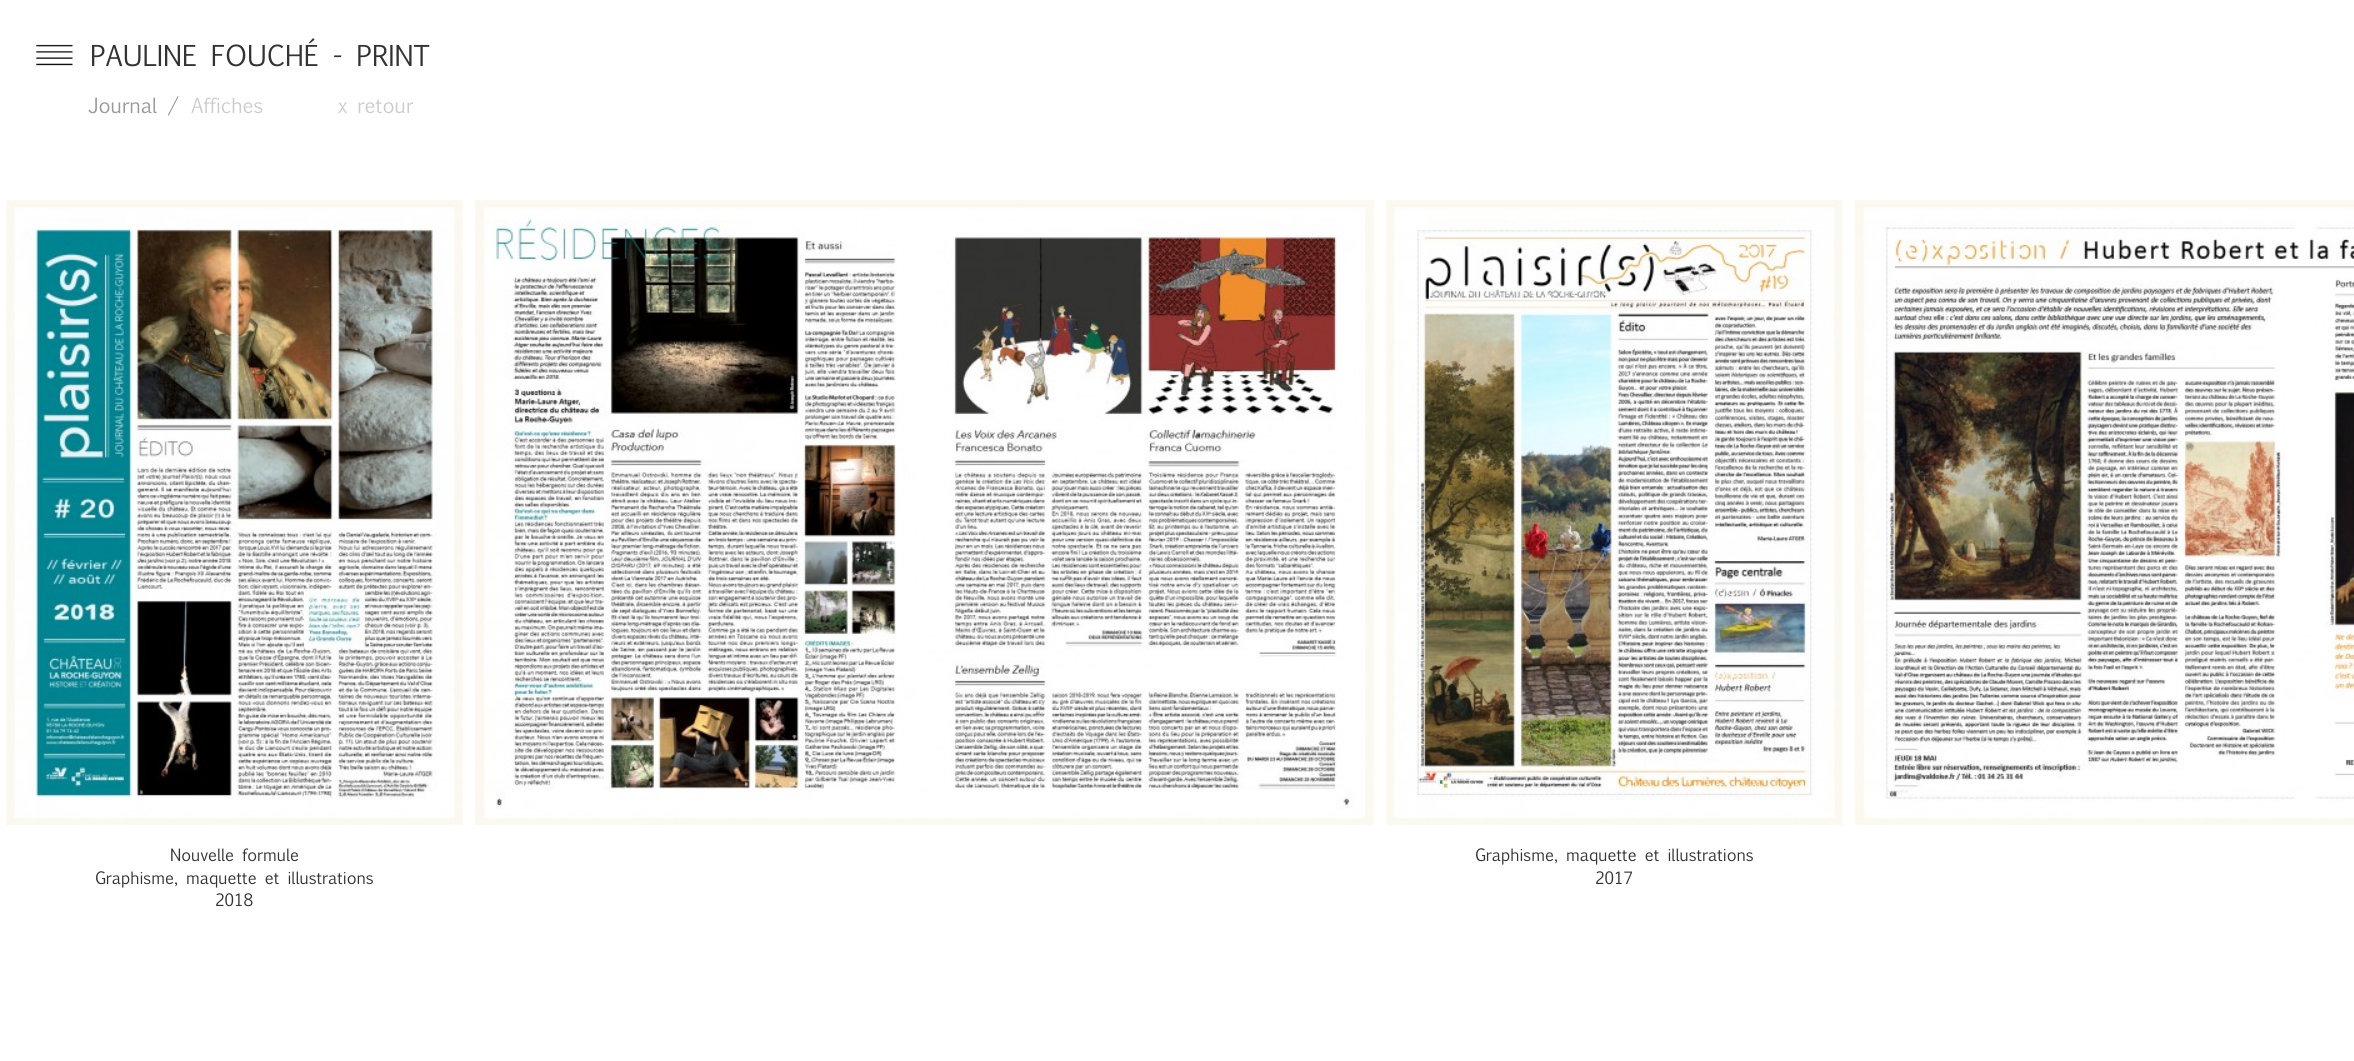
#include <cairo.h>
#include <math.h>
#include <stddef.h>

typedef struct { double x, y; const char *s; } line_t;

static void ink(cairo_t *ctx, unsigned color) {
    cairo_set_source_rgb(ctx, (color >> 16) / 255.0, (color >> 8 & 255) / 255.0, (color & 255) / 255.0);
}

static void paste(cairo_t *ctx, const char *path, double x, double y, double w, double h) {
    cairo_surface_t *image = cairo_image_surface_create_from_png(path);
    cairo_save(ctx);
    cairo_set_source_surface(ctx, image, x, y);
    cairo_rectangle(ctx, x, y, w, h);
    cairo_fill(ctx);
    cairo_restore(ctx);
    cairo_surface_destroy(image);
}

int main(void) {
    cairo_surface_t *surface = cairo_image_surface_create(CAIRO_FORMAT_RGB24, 2354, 1061);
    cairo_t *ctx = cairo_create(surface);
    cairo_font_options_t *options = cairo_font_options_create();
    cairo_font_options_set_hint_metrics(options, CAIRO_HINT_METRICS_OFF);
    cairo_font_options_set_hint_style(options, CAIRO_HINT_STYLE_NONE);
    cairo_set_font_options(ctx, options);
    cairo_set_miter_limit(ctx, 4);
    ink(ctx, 0xFFFFFF);
    cairo_paint(ctx);
    paste(ctx, "media/1.png", 36, 44, 37, 22);
    cairo_select_font_face(ctx, "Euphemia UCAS", CAIRO_FONT_SLANT_NORMAL, CAIRO_FONT_WEIGHT_NORMAL);
    cairo_set_font_size(ctx, 27.5);
    ink(ctx, 0x333333);
    cairo_move_to(ctx, 90, 66);
    cairo_show_text(ctx, "PAULINE FOUCHÉ - PRINT");
    cairo_set_font_size(ctx, 20);
    ink(ctx, 0x999999);
    cairo_move_to(ctx, 88, 113);
    cairo_show_text(ctx, "Journal /");
    ink(ctx, 0xCCCCCC);
    cairo_move_to(ctx, 191, 113);
    cairo_show_text(ctx, "Affiches");
    cairo_move_to(ctx, 338, 113);
    cairo_show_text(ctx, "x retour");
    paste(ctx, "media/2.png", 475, 200, 899, 625);
    paste(ctx, "media/3.png", 1855, 200, 499, 625);
    paste(ctx, "media/4.png", 6, 200, 457, 625);
    cairo_set_font_size(ctx, 16.25);
    ink(ctx, 0x333333);
    {
        static const line_t items[] = {
            {170, 861, "Nouvelle formule"},
            {95, 884, "Graphisme, maquette et illustrations"},
            {215, 906, "2018"},
        };
        for (size_t i = 0; i < sizeof items / sizeof *items; i++) {
            cairo_move_to(ctx, items[i].x, items[i].y);
            cairo_show_text(ctx, items[i].s);
        }
    }
    paste(ctx, "media/5.png", 1386, 200, 457, 625);
    cairo_move_to(ctx, 1475, 861);
    cairo_show_text(ctx, "Graphisme, maquette et illustrations");
    cairo_move_to(ctx, 1595, 884);
    cairo_show_text(ctx, "2017");
    cairo_surface_write_to_png(surface, "image.png");
    cairo_font_options_destroy(options);
    cairo_destroy(ctx);
    cairo_surface_destroy(surface);
    return 0;
}
